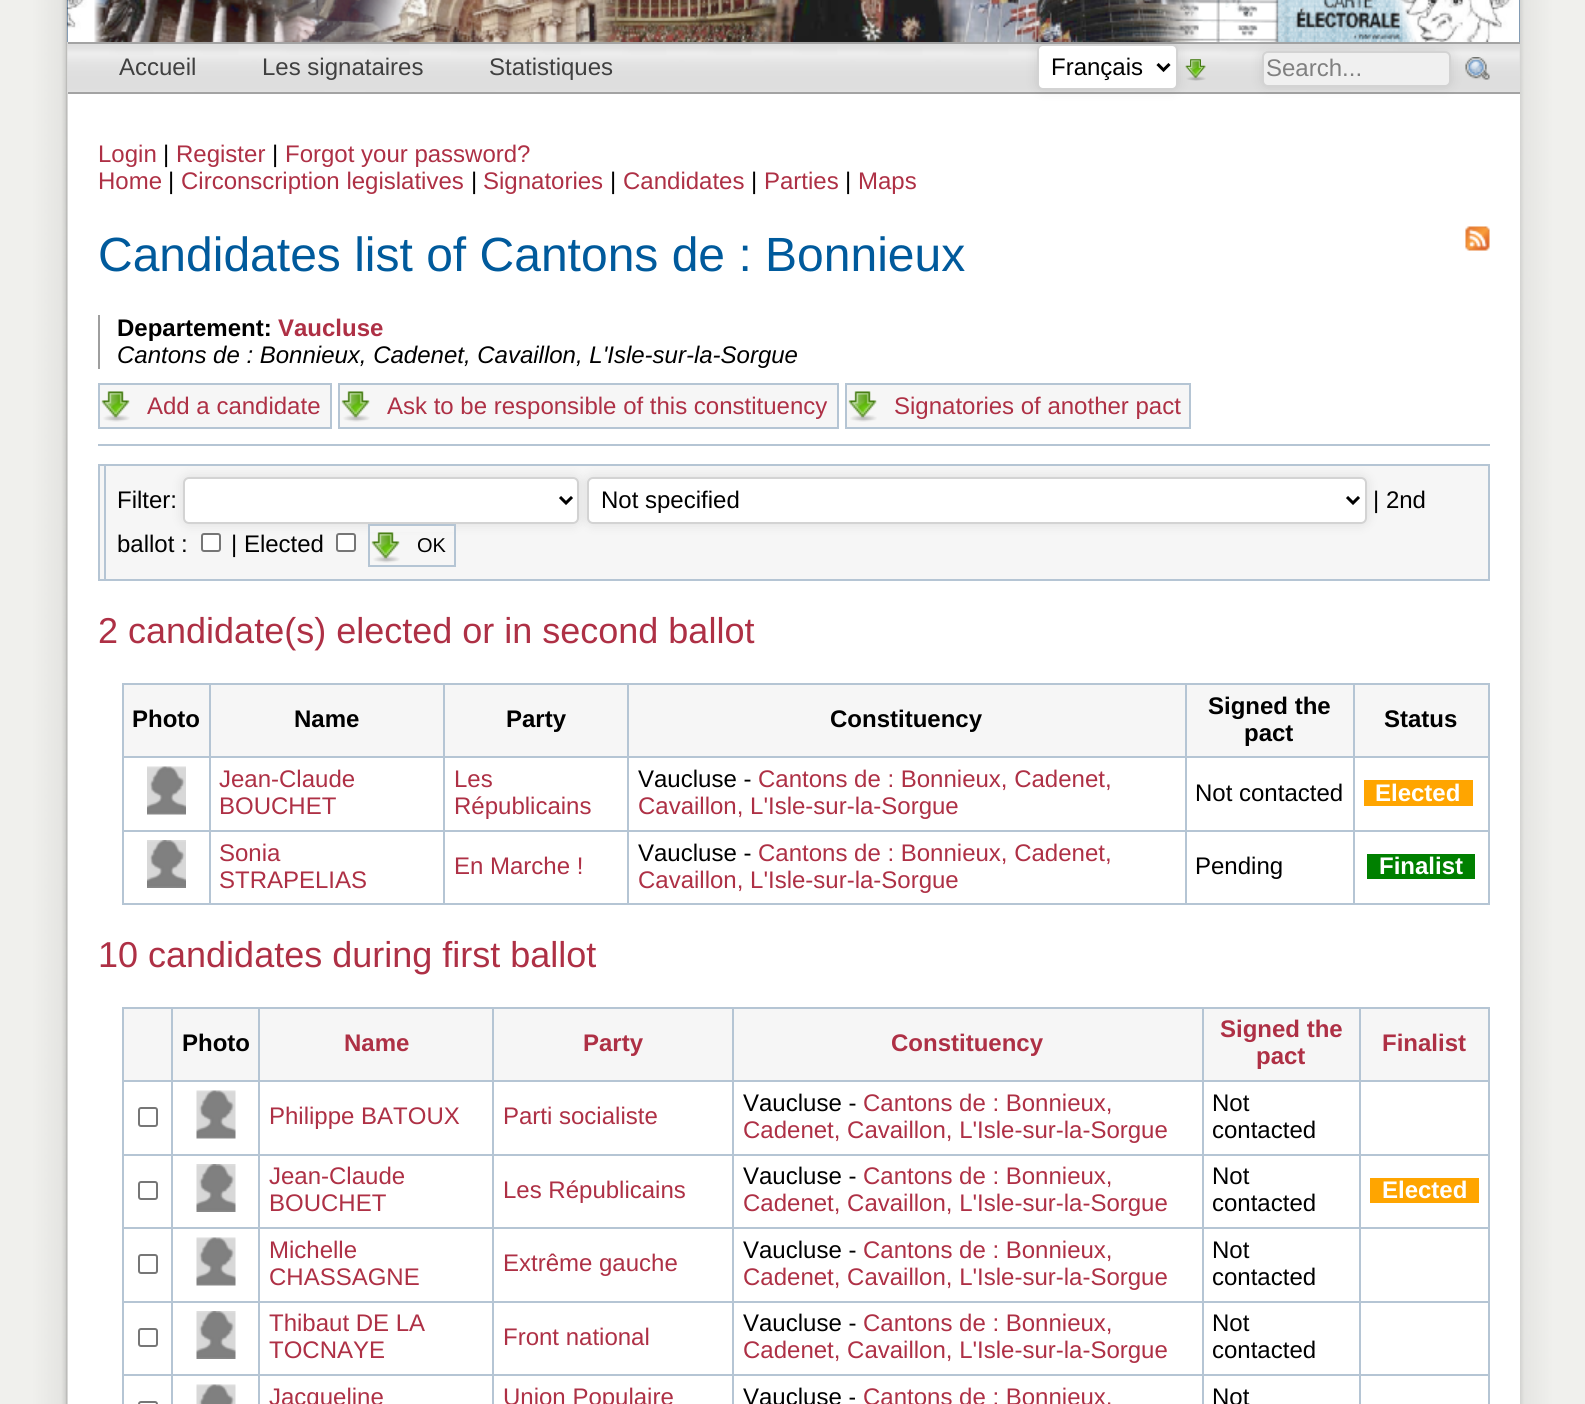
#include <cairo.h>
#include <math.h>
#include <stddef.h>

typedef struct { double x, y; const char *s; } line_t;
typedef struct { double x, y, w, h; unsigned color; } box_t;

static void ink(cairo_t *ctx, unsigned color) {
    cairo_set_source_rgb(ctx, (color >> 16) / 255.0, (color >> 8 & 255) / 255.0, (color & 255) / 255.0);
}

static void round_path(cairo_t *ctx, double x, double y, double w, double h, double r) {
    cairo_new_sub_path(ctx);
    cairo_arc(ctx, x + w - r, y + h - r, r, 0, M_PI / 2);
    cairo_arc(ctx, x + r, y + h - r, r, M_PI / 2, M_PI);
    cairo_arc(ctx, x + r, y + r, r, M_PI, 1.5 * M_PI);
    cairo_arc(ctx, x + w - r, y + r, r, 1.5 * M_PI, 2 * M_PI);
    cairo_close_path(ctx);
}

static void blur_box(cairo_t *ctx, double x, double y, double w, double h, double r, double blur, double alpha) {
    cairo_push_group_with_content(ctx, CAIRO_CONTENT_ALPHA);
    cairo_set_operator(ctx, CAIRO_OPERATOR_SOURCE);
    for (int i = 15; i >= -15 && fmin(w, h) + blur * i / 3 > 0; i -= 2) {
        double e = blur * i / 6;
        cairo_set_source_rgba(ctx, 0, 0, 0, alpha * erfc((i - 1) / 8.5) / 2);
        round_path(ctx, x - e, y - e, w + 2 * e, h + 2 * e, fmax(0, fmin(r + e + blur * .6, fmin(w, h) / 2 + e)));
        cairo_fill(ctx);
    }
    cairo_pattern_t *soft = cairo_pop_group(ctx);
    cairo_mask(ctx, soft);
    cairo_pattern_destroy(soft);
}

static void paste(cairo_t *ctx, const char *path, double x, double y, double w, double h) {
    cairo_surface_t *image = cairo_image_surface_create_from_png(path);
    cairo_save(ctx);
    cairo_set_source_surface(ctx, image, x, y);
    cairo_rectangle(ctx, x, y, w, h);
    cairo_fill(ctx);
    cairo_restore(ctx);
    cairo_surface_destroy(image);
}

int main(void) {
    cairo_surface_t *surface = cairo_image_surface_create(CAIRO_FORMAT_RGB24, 1585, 1404);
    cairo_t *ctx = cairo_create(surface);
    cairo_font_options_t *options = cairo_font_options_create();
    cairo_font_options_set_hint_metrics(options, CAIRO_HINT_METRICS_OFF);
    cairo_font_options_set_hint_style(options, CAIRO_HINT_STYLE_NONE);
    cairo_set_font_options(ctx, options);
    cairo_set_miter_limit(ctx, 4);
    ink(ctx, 0xFFFFFF);
    cairo_paint(ctx);
    paste(ctx, "media/1.png", 0, 0, 68, 1404);
    paste(ctx, "media/2.png", 1520, 0, 65, 1404);
    ink(ctx, 0x043666);
    cairo_rectangle(ctx, 1519, 0, 1, 42);
    cairo_fill(ctx);
    ink(ctx, 0x0A3B6A);
    cairo_rectangle(ctx, 67, 0, 1, 42);
    cairo_fill(ctx);
    paste(ctx, "media/3.png", 67, 0, 1453, 42);
    ink(ctx, 0xDEDEDE);
    cairo_rectangle(ctx, 68, 44, 1452, 48);
    cairo_fill(ctx);
    paste(ctx, "media/4.png", 67, 46, 1453, 47);
    ink(ctx, 0xA3A3A3);
    cairo_rectangle(ctx, 68, 42, 1452, 2);
    cairo_fill(ctx);
    cairo_rectangle(ctx, 68, 92, 1452, 2);
    cairo_fill(ctx);
    cairo_select_font_face(ctx, "Liberation Sans", CAIRO_FONT_SLANT_NORMAL, CAIRO_FONT_WEIGHT_NORMAL);
    cairo_set_font_size(ctx, 24);
    ink(ctx, 0x404040);
    {
        static const line_t items[] = {
            {119, 75, "Accueil"},
            {262, 75, "Les signataires"},
            {489, 75, "Statistiques"},
        };
        for (size_t i = 0; i < sizeof items / sizeof *items; i++) {
            cairo_move_to(ctx, items[i].x, items[i].y);
            cairo_show_text(ctx, items[i].s);
        }
    }
    ink(ctx, 0x000000);
    blur_box(ctx, 1037, 44, 141, 46, 6, 6, 0.1);
    ink(ctx, 0xFFFFFF);
    round_path(ctx, 1038, 45, 139, 44, 5);
    cairo_fill_preserve(ctx);
    ink(ctx, 0xD3D3D3);
    cairo_stroke(ctx);
    cairo_new_path(ctx);
    cairo_move_to(ctx, 1157.5, 64);
    cairo_line_to(ctx, 1163.5, 70);
    cairo_line_to(ctx, 1169.5, 64);
    ink(ctx, 0x000000);
    cairo_set_line_width(ctx, 3);
    cairo_stroke(ctx);
    cairo_move_to(ctx, 1051, 75);
    cairo_show_text(ctx, "Français");
    paste(ctx, "media/5.png", 1185, 59, 21, 22);
    ink(ctx, 0x000000);
    blur_box(ctx, 1262, 51, 189, 36, 6, 6, 0.1);
    ink(ctx, 0xF0F0F0);
    round_path(ctx, 1263, 52, 187, 34, 5);
    cairo_fill_preserve(ctx);
    ink(ctx, 0xD3D3D3);
    cairo_set_line_width(ctx, 2);
    cairo_stroke(ctx);
    ink(ctx, 0x808080);
    cairo_move_to(ctx, 1266, 76);
    cairo_show_text(ctx, "Search...");
    paste(ctx, "media/6.png", 1465, 57, 25, 23);
    ink(ctx, 0xAE3045);
    cairo_move_to(ctx, 98, 162);
    cairo_show_text(ctx, "Login");
    ink(ctx, 0x000000);
    cairo_move_to(ctx, 163, 162);
    cairo_show_text(ctx, "|");
    ink(ctx, 0xAE3045);
    cairo_move_to(ctx, 176, 162);
    cairo_show_text(ctx, "Register");
    ink(ctx, 0x000000);
    cairo_move_to(ctx, 272, 162);
    cairo_show_text(ctx, "|");
    ink(ctx, 0xAE3045);
    cairo_move_to(ctx, 285, 162);
    cairo_show_text(ctx, "Forgot your password?");
    cairo_move_to(ctx, 98, 189);
    cairo_show_text(ctx, "Home");
    ink(ctx, 0x000000);
    cairo_move_to(ctx, 168, 189);
    cairo_show_text(ctx, "|");
    ink(ctx, 0xAE3045);
    cairo_move_to(ctx, 181, 189);
    cairo_show_text(ctx, "Circonscription legislatives");
    ink(ctx, 0x000000);
    cairo_move_to(ctx, 471, 189);
    cairo_show_text(ctx, "|");
    ink(ctx, 0xAE3045);
    cairo_move_to(ctx, 483, 189);
    cairo_show_text(ctx, "Signatories");
    ink(ctx, 0x000000);
    cairo_move_to(ctx, 610, 189);
    cairo_show_text(ctx, "|");
    ink(ctx, 0xAE3045);
    cairo_move_to(ctx, 623, 189);
    cairo_show_text(ctx, "Candidates");
    ink(ctx, 0x000000);
    cairo_move_to(ctx, 751, 189);
    cairo_show_text(ctx, "|");
    ink(ctx, 0xAE3045);
    cairo_move_to(ctx, 764, 189);
    cairo_show_text(ctx, "Parties");
    ink(ctx, 0x000000);
    cairo_move_to(ctx, 845, 189);
    cairo_show_text(ctx, "|");
    ink(ctx, 0xAE3045);
    cairo_move_to(ctx, 858, 189);
    cairo_show_text(ctx, "Maps");
    cairo_set_font_size(ctx, 48);
    ink(ctx, 0x005A9C);
    cairo_move_to(ctx, 98, 271);
    cairo_show_text(ctx, "Candidates list of Cantons de : Bonnieux");
    paste(ctx, "media/7.png", 1465, 226, 25, 25);
    ink(ctx, 0x9E9E9E);
    cairo_rectangle(ctx, 98, 315, 2, 54);
    cairo_fill(ctx);
    cairo_select_font_face(ctx, "Liberation Sans", CAIRO_FONT_SLANT_NORMAL, CAIRO_FONT_WEIGHT_BOLD);
    cairo_set_font_size(ctx, 24);
    ink(ctx, 0x000000);
    cairo_move_to(ctx, 117, 336);
    cairo_show_text(ctx, "Departement:");
    ink(ctx, 0xAE3045);
    cairo_move_to(ctx, 278, 336);
    cairo_show_text(ctx, "Vaucluse");
    cairo_select_font_face(ctx, "Liberation Sans", CAIRO_FONT_SLANT_ITALIC, CAIRO_FONT_WEIGHT_NORMAL);
    ink(ctx, 0x000000);
    cairo_move_to(ctx, 117, 363);
    cairo_show_text(ctx, "Cantons de : Bonnieux, Cadenet, Cavaillon, L'Isle-sur-la-Sorgue");
    ink(ctx, 0xF6F6F6);
    cairo_rectangle(ctx, 100, 385, 230, 42);
    cairo_fill(ctx);
    paste(ctx, "media/8.png", 101, 391, 29, 31);
    cairo_rectangle(ctx, 99, 384, 232, 44);
    ink(ctx, 0xB5C5D4);
    cairo_stroke(ctx);
    cairo_select_font_face(ctx, "Liberation Sans", CAIRO_FONT_SLANT_NORMAL, CAIRO_FONT_WEIGHT_NORMAL);
    ink(ctx, 0xAE3045);
    cairo_move_to(ctx, 147, 414);
    cairo_show_text(ctx, "Add a candidate");
    ink(ctx, 0xF6F6F6);
    cairo_rectangle(ctx, 340, 385, 497, 42);
    cairo_fill(ctx);
    paste(ctx, "media/9.png", 341, 391, 29, 31);
    cairo_rectangle(ctx, 339, 384, 499, 44);
    ink(ctx, 0xB5C5D4);
    cairo_stroke(ctx);
    ink(ctx, 0xAE3045);
    cairo_move_to(ctx, 387, 414);
    cairo_show_text(ctx, "Ask to be responsible of this constituency");
    ink(ctx, 0xF6F6F6);
    cairo_rectangle(ctx, 847, 385, 342, 42);
    cairo_fill(ctx);
    paste(ctx, "media/8.png", 848, 391, 29, 31);
    cairo_rectangle(ctx, 846, 384, 344, 44);
    ink(ctx, 0xB5C5D4);
    cairo_stroke(ctx);
    ink(ctx, 0xAE3045);
    cairo_move_to(ctx, 894, 414);
    cairo_show_text(ctx, "Signatories of another pact");
    ink(ctx, 0xB5C5D4);
    cairo_rectangle(ctx, 98, 444, 1392, 2);
    cairo_fill(ctx);
    ink(ctx, 0xF6F6F6);
    cairo_rectangle(ctx, 99, 465, 1390, 115);
    cairo_fill_preserve(ctx);
    ink(ctx, 0xB5C5D4);
    cairo_stroke(ctx);
    cairo_rectangle(ctx, 104, 465, 2, 114);
    cairo_fill(ctx);
    ink(ctx, 0x000000);
    cairo_move_to(ctx, 117, 508);
    cairo_show_text(ctx, "Filter:");
    ink(ctx, 0x000000);
    blur_box(ctx, 183, 477, 396, 47, 6, 6, 0.1);
    ink(ctx, 0xFFFFFF);
    round_path(ctx, 184, 478, 394, 45, 5);
    cairo_fill_preserve(ctx);
    ink(ctx, 0xD3D3D3);
    cairo_stroke(ctx);
    cairo_new_path(ctx);
    cairo_move_to(ctx, 560, 497);
    cairo_line_to(ctx, 566, 503);
    cairo_line_to(ctx, 572, 497);
    ink(ctx, 0x000000);
    cairo_set_line_width(ctx, 3);
    cairo_stroke(ctx);
    ink(ctx, 0x000000);
    blur_box(ctx, 587, 477, 780, 47, 6, 6, 0.1);
    ink(ctx, 0xFFFFFF);
    round_path(ctx, 588, 478, 778, 45, 5);
    cairo_fill_preserve(ctx);
    ink(ctx, 0xD3D3D3);
    cairo_set_line_width(ctx, 2);
    cairo_stroke(ctx);
    cairo_new_path(ctx);
    cairo_move_to(ctx, 1347, 497);
    cairo_line_to(ctx, 1353, 503);
    cairo_line_to(ctx, 1359, 497);
    ink(ctx, 0x000000);
    cairo_set_line_width(ctx, 3);
    cairo_stroke(ctx);
    {
        static const line_t items[] = {
            {601, 508, "Not specified"},
            {1373, 508, "| 2nd"},
            {117, 552, "ballot :"},
        };
        for (size_t i = 0; i < sizeof items / sizeof *items; i++) {
            cairo_move_to(ctx, items[i].x, items[i].y);
            cairo_show_text(ctx, items[i].s);
        }
    }
    ink(ctx, 0xFFFFFF);
    round_path(ctx, 202, 534, 18, 17, 2);
    cairo_fill_preserve(ctx);
    ink(ctx, 0x767676);
    cairo_set_line_width(ctx, 2);
    cairo_stroke(ctx);
    ink(ctx, 0x000000);
    cairo_move_to(ctx, 231, 552);
    cairo_show_text(ctx, "| Elected");
    ink(ctx, 0xFFFFFF);
    round_path(ctx, 337, 534, 18, 17, 2);
    cairo_fill_preserve(ctx);
    ink(ctx, 0x767676);
    cairo_stroke(ctx);
    ink(ctx, 0xF6F6F6);
    cairo_rectangle(ctx, 370, 526, 84, 6);
    cairo_fill(ctx);
    paste(ctx, "media/9.png", 371, 532, 29, 31);
    cairo_rectangle(ctx, 369, 525, 86, 41);
    ink(ctx, 0xB5C5D4);
    cairo_stroke(ctx);
    cairo_set_font_size(ctx, 20);
    ink(ctx, 0x000000);
    cairo_move_to(ctx, 417, 552);
    cairo_show_text(ctx, "OK");
    cairo_set_font_size(ctx, 36);
    ink(ctx, 0xAE3045);
    cairo_move_to(ctx, 98, 643);
    cairo_show_text(ctx, "2 candidate(s) elected or in second ballot");
    {
        static const box_t items[] = {
            {124, 685, 85, 71, 0xF6F6F6},
            {1353, 683, 137, 2, 0xB5C5D4},
            {1353, 756, 137, 2, 0xB5C5D4},
            {1353, 830, 137, 2, 0xB5C5D4},
            {1488, 830, 2, 75, 0xB5C5D4},
            {1353, 903, 137, 2, 0xB5C5D4},
            {1353, 830, 2, 75, 0xB5C5D4},
            {1185, 830, 170, 2, 0xB5C5D4},
            {1353, 756, 2, 75, 0xB5C5D4},
            {1185, 756, 170, 2, 0xB5C5D4},
            {1353, 683, 2, 75, 0xB5C5D4},
            {1185, 683, 170, 2, 0xB5C5D4},
            {1185, 903, 170, 2, 0xB5C5D4},
            {1185, 830, 2, 75, 0xB5C5D4},
            {627, 830, 560, 2, 0xB5C5D4},
            {1185, 756, 2, 75, 0xB5C5D4},
            {627, 756, 560, 2, 0xB5C5D4},
            {1185, 683, 2, 75, 0xB5C5D4},
            {627, 683, 560, 2, 0xB5C5D4},
            {627, 903, 560, 2, 0xB5C5D4},
            {627, 830, 2, 75, 0xB5C5D4},
            {443, 830, 186, 2, 0xB5C5D4},
            {627, 756, 2, 75, 0xB5C5D4},
            {443, 756, 186, 2, 0xB5C5D4},
            {627, 683, 2, 75, 0xB5C5D4},
            {443, 683, 186, 2, 0xB5C5D4},
            {443, 903, 186, 2, 0xB5C5D4},
            {443, 830, 2, 75, 0xB5C5D4},
            {209, 830, 235, 2, 0xB5C5D4},
            {443, 756, 2, 75, 0xB5C5D4},
            {209, 756, 235, 2, 0xB5C5D4},
            {443, 683, 2, 75, 0xB5C5D4},
            {209, 683, 235, 2, 0xB5C5D4},
            {209, 903, 235, 2, 0xB5C5D4},
            {209, 830, 2, 75, 0xB5C5D4},
            {122, 830, 88, 2, 0xB5C5D4},
            {209, 756, 2, 75, 0xB5C5D4},
            {122, 756, 88, 2, 0xB5C5D4},
            {209, 683, 2, 75, 0xB5C5D4},
            {122, 683, 88, 2, 0xB5C5D4},
            {122, 903, 88, 2, 0xB5C5D4},
            {122, 830, 2, 75, 0xB5C5D4},
            {122, 756, 2, 75, 0xB5C5D4},
            {122, 683, 2, 75, 0xB5C5D4},
        };
        for (size_t i = 0; i < sizeof items / sizeof *items; i++) {
            ink(ctx, items[i].color);
            cairo_rectangle(ctx, items[i].x, items[i].y, items[i].w, items[i].h);
            cairo_fill(ctx);
        }
    }
    cairo_select_font_face(ctx, "Liberation Sans", CAIRO_FONT_SLANT_NORMAL, CAIRO_FONT_WEIGHT_BOLD);
    cairo_set_font_size(ctx, 24);
    ink(ctx, 0x000000);
    cairo_move_to(ctx, 132, 727);
    cairo_show_text(ctx, "Photo");
    ink(ctx, 0xF6F6F6);
    cairo_rectangle(ctx, 211, 685, 232, 71);
    cairo_fill(ctx);
    ink(ctx, 0x000000);
    cairo_move_to(ctx, 294, 727);
    cairo_show_text(ctx, "Name");
    ink(ctx, 0xF6F6F6);
    cairo_rectangle(ctx, 445, 685, 182, 71);
    cairo_fill(ctx);
    ink(ctx, 0x000000);
    cairo_move_to(ctx, 506, 727);
    cairo_show_text(ctx, "Party");
    ink(ctx, 0xF6F6F6);
    cairo_rectangle(ctx, 629, 685, 556, 71);
    cairo_fill(ctx);
    ink(ctx, 0x000000);
    cairo_move_to(ctx, 830, 727);
    cairo_show_text(ctx, "Constituency");
    ink(ctx, 0xF6F6F6);
    cairo_rectangle(ctx, 1187, 685, 166, 71);
    cairo_fill(ctx);
    ink(ctx, 0x000000);
    cairo_move_to(ctx, 1208, 714);
    cairo_show_text(ctx, "Signed the");
    cairo_move_to(ctx, 1244, 741);
    cairo_show_text(ctx, "pact");
    {
        static const box_t items[] = {
            {1355, 685, 133, 71, 0xF6F6F6},
            {1488, 756, 2, 75, 0xB5C5D4},
            {1488, 683, 2, 75, 0xB5C5D4},
        };
        for (size_t i = 0; i < sizeof items / sizeof *items; i++) {
            ink(ctx, items[i].color);
            cairo_rectangle(ctx, items[i].x, items[i].y, items[i].w, items[i].h);
            cairo_fill(ctx);
        }
    }
    ink(ctx, 0x000000);
    cairo_move_to(ctx, 1384, 727);
    cairo_show_text(ctx, "Status");
    paste(ctx, "media/10.png", 147, 766, 39, 49);
    cairo_select_font_face(ctx, "Liberation Sans", CAIRO_FONT_SLANT_NORMAL, CAIRO_FONT_WEIGHT_NORMAL);
    ink(ctx, 0xAE3045);
    {
        static const line_t items[] = {
            {219, 787, "Jean-Claude"},
            {219, 814, "BOUCHET"},
            {454, 787, "Les"},
            {454, 814, "Républicains"},
        };
        for (size_t i = 0; i < sizeof items / sizeof *items; i++) {
            cairo_move_to(ctx, items[i].x, items[i].y);
            cairo_show_text(ctx, items[i].s);
        }
    }
    ink(ctx, 0x000000);
    cairo_move_to(ctx, 638, 787);
    cairo_show_text(ctx, "Vaucluse -");
    ink(ctx, 0xAE3045);
    cairo_move_to(ctx, 758, 787);
    cairo_show_text(ctx, "Cantons de : Bonnieux, Cadenet,");
    cairo_move_to(ctx, 638, 814);
    cairo_show_text(ctx, "Cavaillon, L'Isle-sur-la-Sorgue");
    ink(ctx, 0x000000);
    cairo_move_to(ctx, 1195, 801);
    cairo_show_text(ctx, "Not contacted");
    ink(ctx, 0xFFA500);
    cairo_rectangle(ctx, 1364, 780, 109, 26);
    cairo_fill(ctx);
    cairo_select_font_face(ctx, "Liberation Sans", CAIRO_FONT_SLANT_NORMAL, CAIRO_FONT_WEIGHT_BOLD);
    ink(ctx, 0xFFFFFF);
    cairo_move_to(ctx, 1375, 801);
    cairo_show_text(ctx, "Elected");
    paste(ctx, "media/11.png", 147, 840, 39, 48);
    cairo_select_font_face(ctx, "Liberation Sans", CAIRO_FONT_SLANT_NORMAL, CAIRO_FONT_WEIGHT_NORMAL);
    ink(ctx, 0xAE3045);
    {
        static const line_t items[] = {
            {219, 861, "Sonia"},
            {219, 888, "STRAPELIAS"},
            {454, 874, "En Marche !"},
        };
        for (size_t i = 0; i < sizeof items / sizeof *items; i++) {
            cairo_move_to(ctx, items[i].x, items[i].y);
            cairo_show_text(ctx, items[i].s);
        }
    }
    ink(ctx, 0x000000);
    cairo_move_to(ctx, 638, 861);
    cairo_show_text(ctx, "Vaucluse -");
    ink(ctx, 0xAE3045);
    cairo_move_to(ctx, 758, 861);
    cairo_show_text(ctx, "Cantons de : Bonnieux, Cadenet,");
    cairo_move_to(ctx, 638, 888);
    cairo_show_text(ctx, "Cavaillon, L'Isle-sur-la-Sorgue");
    ink(ctx, 0x000000);
    cairo_move_to(ctx, 1195, 874);
    cairo_show_text(ctx, "Pending");
    ink(ctx, 0x008000);
    cairo_rectangle(ctx, 1367, 854, 108, 25);
    cairo_fill(ctx);
    cairo_select_font_face(ctx, "Liberation Sans", CAIRO_FONT_SLANT_NORMAL, CAIRO_FONT_WEIGHT_BOLD);
    ink(ctx, 0xFFFFFF);
    cairo_move_to(ctx, 1379, 874);
    cairo_show_text(ctx, "Finalist");
    cairo_select_font_face(ctx, "Liberation Sans", CAIRO_FONT_SLANT_NORMAL, CAIRO_FONT_WEIGHT_NORMAL);
    cairo_set_font_size(ctx, 36);
    ink(ctx, 0xAE3045);
    cairo_move_to(ctx, 98, 967);
    cairo_show_text(ctx, "10 candidates during first ballot");
    {
        static const box_t items[] = {
            {124, 1009, 47, 71, 0xF6F6F6},
            {1359, 1007, 131, 2, 0xB5C5D4},
            {1359, 1080, 131, 2, 0xB5C5D4},
            {1359, 1154, 131, 2, 0xB5C5D4},
            {1359, 1227, 131, 2, 0xB5C5D4},
            {1359, 1301, 131, 2, 0xB5C5D4},
            {1359, 1374, 131, 2, 0xB5C5D4},
            {1359, 1374, 2, 30, 0xB5C5D4},
            {1202, 1374, 159, 2, 0xB5C5D4},
            {1359, 1301, 2, 75, 0xB5C5D4},
            {1202, 1301, 159, 2, 0xB5C5D4},
            {1359, 1227, 2, 75, 0xB5C5D4},
            {1202, 1227, 159, 2, 0xB5C5D4},
            {1359, 1154, 2, 75, 0xB5C5D4},
            {1202, 1154, 159, 2, 0xB5C5D4},
            {1359, 1080, 2, 75, 0xB5C5D4},
            {1202, 1080, 159, 2, 0xB5C5D4},
            {1359, 1007, 2, 75, 0xB5C5D4},
            {1202, 1007, 159, 2, 0xB5C5D4},
            {1202, 1374, 2, 30, 0xB5C5D4},
            {732, 1374, 471, 2, 0xB5C5D4},
            {1202, 1301, 2, 75, 0xB5C5D4},
            {732, 1301, 471, 2, 0xB5C5D4},
            {1202, 1227, 2, 75, 0xB5C5D4},
            {732, 1227, 471, 2, 0xB5C5D4},
            {1202, 1154, 2, 75, 0xB5C5D4},
            {732, 1154, 471, 2, 0xB5C5D4},
            {1202, 1080, 2, 75, 0xB5C5D4},
            {732, 1080, 471, 2, 0xB5C5D4},
            {1202, 1007, 2, 75, 0xB5C5D4},
            {732, 1007, 471, 2, 0xB5C5D4},
            {732, 1374, 2, 30, 0xB5C5D4},
            {492, 1374, 242, 2, 0xB5C5D4},
            {732, 1301, 2, 75, 0xB5C5D4},
            {492, 1301, 242, 2, 0xB5C5D4},
            {732, 1227, 2, 75, 0xB5C5D4},
            {492, 1227, 242, 2, 0xB5C5D4},
            {732, 1154, 2, 75, 0xB5C5D4},
            {492, 1154, 242, 2, 0xB5C5D4},
            {732, 1080, 2, 75, 0xB5C5D4},
            {492, 1080, 242, 2, 0xB5C5D4},
            {732, 1007, 2, 75, 0xB5C5D4},
            {492, 1007, 242, 2, 0xB5C5D4},
            {492, 1374, 2, 30, 0xB5C5D4},
            {258, 1374, 236, 2, 0xB5C5D4},
            {492, 1301, 2, 75, 0xB5C5D4},
            {258, 1301, 236, 2, 0xB5C5D4},
            {492, 1227, 2, 75, 0xB5C5D4},
            {258, 1227, 236, 2, 0xB5C5D4},
            {492, 1154, 2, 75, 0xB5C5D4},
            {258, 1154, 236, 2, 0xB5C5D4},
            {492, 1080, 2, 75, 0xB5C5D4},
            {258, 1080, 236, 2, 0xB5C5D4},
            {492, 1007, 2, 75, 0xB5C5D4},
            {258, 1007, 236, 2, 0xB5C5D4},
            {258, 1374, 2, 30, 0xB5C5D4},
            {171, 1374, 89, 2, 0xB5C5D4},
            {258, 1301, 2, 75, 0xB5C5D4},
            {171, 1301, 89, 2, 0xB5C5D4},
            {258, 1227, 2, 75, 0xB5C5D4},
            {171, 1227, 89, 2, 0xB5C5D4},
            {258, 1154, 2, 75, 0xB5C5D4},
            {171, 1154, 89, 2, 0xB5C5D4},
            {258, 1080, 2, 75, 0xB5C5D4},
            {171, 1080, 89, 2, 0xB5C5D4},
            {258, 1007, 2, 75, 0xB5C5D4},
            {171, 1007, 89, 2, 0xB5C5D4},
            {171, 1374, 2, 30, 0xB5C5D4},
            {122, 1374, 51, 2, 0xB5C5D4},
            {171, 1301, 2, 75, 0xB5C5D4},
            {122, 1301, 51, 2, 0xB5C5D4},
            {171, 1227, 2, 75, 0xB5C5D4},
            {122, 1227, 51, 2, 0xB5C5D4},
            {171, 1154, 2, 75, 0xB5C5D4},
            {122, 1154, 51, 2, 0xB5C5D4},
            {171, 1080, 2, 75, 0xB5C5D4},
            {122, 1080, 51, 2, 0xB5C5D4},
            {171, 1007, 2, 75, 0xB5C5D4},
            {122, 1007, 51, 2, 0xB5C5D4},
            {122, 1374, 2, 30, 0xB5C5D4},
            {122, 1301, 2, 75, 0xB5C5D4},
            {122, 1227, 2, 75, 0xB5C5D4},
            {122, 1154, 2, 75, 0xB5C5D4},
            {122, 1080, 2, 75, 0xB5C5D4},
            {122, 1007, 2, 75, 0xB5C5D4},
            {173, 1009, 85, 71, 0xF6F6F6},
        };
        for (size_t i = 0; i < sizeof items / sizeof *items; i++) {
            ink(ctx, items[i].color);
            cairo_rectangle(ctx, items[i].x, items[i].y, items[i].w, items[i].h);
            cairo_fill(ctx);
        }
    }
    cairo_select_font_face(ctx, "Liberation Sans", CAIRO_FONT_SLANT_NORMAL, CAIRO_FONT_WEIGHT_BOLD);
    cairo_set_font_size(ctx, 24);
    ink(ctx, 0x000000);
    cairo_move_to(ctx, 182, 1051);
    cairo_show_text(ctx, "Photo");
    ink(ctx, 0xF6F6F6);
    cairo_rectangle(ctx, 260, 1009, 232, 71);
    cairo_fill(ctx);
    ink(ctx, 0xAE3045);
    cairo_move_to(ctx, 344, 1051);
    cairo_show_text(ctx, "Name");
    ink(ctx, 0xF6F6F6);
    cairo_rectangle(ctx, 494, 1009, 238, 71);
    cairo_fill(ctx);
    ink(ctx, 0xAE3045);
    cairo_move_to(ctx, 583, 1051);
    cairo_show_text(ctx, "Party");
    ink(ctx, 0xF6F6F6);
    cairo_rectangle(ctx, 734, 1009, 468, 71);
    cairo_fill(ctx);
    ink(ctx, 0xAE3045);
    cairo_move_to(ctx, 891, 1051);
    cairo_show_text(ctx, "Constituency");
    ink(ctx, 0xF6F6F6);
    cairo_rectangle(ctx, 1204, 1009, 155, 71);
    cairo_fill(ctx);
    ink(ctx, 0xAE3045);
    cairo_move_to(ctx, 1220, 1037);
    cairo_show_text(ctx, "Signed the");
    cairo_move_to(ctx, 1256, 1064);
    cairo_show_text(ctx, "pact");
    {
        static const box_t items[] = {
            {1361, 1009, 127, 71, 0xF6F6F6},
            {1488, 1374, 2, 30, 0xB5C5D4},
            {1488, 1301, 2, 75, 0xB5C5D4},
            {1488, 1227, 2, 75, 0xB5C5D4},
            {1488, 1154, 2, 75, 0xB5C5D4},
            {1488, 1080, 2, 75, 0xB5C5D4},
            {1488, 1007, 2, 75, 0xB5C5D4},
        };
        for (size_t i = 0; i < sizeof items / sizeof *items; i++) {
            ink(ctx, items[i].color);
            cairo_rectangle(ctx, items[i].x, items[i].y, items[i].w, items[i].h);
            cairo_fill(ctx);
        }
    }
    ink(ctx, 0xAE3045);
    cairo_move_to(ctx, 1382, 1051);
    cairo_show_text(ctx, "Finalist");
    round_path(ctx, 139, 1108, 18, 18, 2);
    ink(ctx, 0x767676);
    cairo_stroke(ctx);
    paste(ctx, "media/12.png", 196, 1090, 40, 49);
    cairo_select_font_face(ctx, "Liberation Sans", CAIRO_FONT_SLANT_NORMAL, CAIRO_FONT_WEIGHT_NORMAL);
    ink(ctx, 0xAE3045);
    cairo_move_to(ctx, 269, 1124);
    cairo_show_text(ctx, "Philippe BATOUX");
    cairo_move_to(ctx, 503, 1124);
    cairo_show_text(ctx, "Parti socialiste");
    ink(ctx, 0x000000);
    cairo_move_to(ctx, 743, 1111);
    cairo_show_text(ctx, "Vaucluse -");
    ink(ctx, 0xAE3045);
    cairo_move_to(ctx, 863, 1111);
    cairo_show_text(ctx, "Cantons de : Bonnieux,");
    cairo_move_to(ctx, 743, 1138);
    cairo_show_text(ctx, "Cadenet, Cavaillon, L'Isle-sur-la-Sorgue");
    ink(ctx, 0x000000);
    cairo_move_to(ctx, 1212, 1111);
    cairo_show_text(ctx, "Not");
    cairo_move_to(ctx, 1212, 1138);
    cairo_show_text(ctx, "contacted");
    round_path(ctx, 139, 1182, 18, 17, 2);
    ink(ctx, 0x767676);
    cairo_stroke(ctx);
    paste(ctx, "media/13.png", 196, 1164, 40, 48);
    ink(ctx, 0xAE3045);
    {
        static const line_t items[] = {
            {269, 1184, "Jean-Claude"},
            {269, 1211, "BOUCHET"},
            {503, 1198, "Les Républicains"},
        };
        for (size_t i = 0; i < sizeof items / sizeof *items; i++) {
            cairo_move_to(ctx, items[i].x, items[i].y);
            cairo_show_text(ctx, items[i].s);
        }
    }
    ink(ctx, 0x000000);
    cairo_move_to(ctx, 743, 1184);
    cairo_show_text(ctx, "Vaucluse -");
    ink(ctx, 0xAE3045);
    cairo_move_to(ctx, 863, 1184);
    cairo_show_text(ctx, "Cantons de : Bonnieux,");
    cairo_move_to(ctx, 743, 1211);
    cairo_show_text(ctx, "Cadenet, Cavaillon, L'Isle-sur-la-Sorgue");
    ink(ctx, 0x000000);
    cairo_move_to(ctx, 1212, 1184);
    cairo_show_text(ctx, "Not");
    cairo_move_to(ctx, 1212, 1211);
    cairo_show_text(ctx, "contacted");
    ink(ctx, 0xFFA500);
    cairo_rectangle(ctx, 1370, 1178, 109, 25);
    cairo_fill(ctx);
    cairo_select_font_face(ctx, "Liberation Sans", CAIRO_FONT_SLANT_NORMAL, CAIRO_FONT_WEIGHT_BOLD);
    ink(ctx, 0xFFFFFF);
    cairo_move_to(ctx, 1382, 1198);
    cairo_show_text(ctx, "Elected");
    round_path(ctx, 139, 1255, 18, 18, 2);
    ink(ctx, 0x767676);
    cairo_stroke(ctx);
    paste(ctx, "media/12.png", 196, 1237, 40, 49);
    cairo_select_font_face(ctx, "Liberation Sans", CAIRO_FONT_SLANT_NORMAL, CAIRO_FONT_WEIGHT_NORMAL);
    ink(ctx, 0xAE3045);
    {
        static const line_t items[] = {
            {269, 1258, "Michelle"},
            {269, 1285, "CHASSAGNE"},
            {503, 1271, "Extrême gauche"},
        };
        for (size_t i = 0; i < sizeof items / sizeof *items; i++) {
            cairo_move_to(ctx, items[i].x, items[i].y);
            cairo_show_text(ctx, items[i].s);
        }
    }
    ink(ctx, 0x000000);
    cairo_move_to(ctx, 743, 1258);
    cairo_show_text(ctx, "Vaucluse -");
    ink(ctx, 0xAE3045);
    cairo_move_to(ctx, 863, 1258);
    cairo_show_text(ctx, "Cantons de : Bonnieux,");
    cairo_move_to(ctx, 743, 1285);
    cairo_show_text(ctx, "Cadenet, Cavaillon, L'Isle-sur-la-Sorgue");
    ink(ctx, 0x000000);
    cairo_move_to(ctx, 1212, 1258);
    cairo_show_text(ctx, "Not");
    cairo_move_to(ctx, 1212, 1285);
    cairo_show_text(ctx, "contacted");
    round_path(ctx, 139, 1329, 18, 17, 2);
    ink(ctx, 0x767676);
    cairo_stroke(ctx);
    paste(ctx, "media/13.png", 196, 1311, 40, 48);
    ink(ctx, 0xAE3045);
    {
        static const line_t items[] = {
            {269, 1331, "Thibaut DE LA"},
            {269, 1358, "TOCNAYE"},
            {503, 1345, "Front national"},
        };
        for (size_t i = 0; i < sizeof items / sizeof *items; i++) {
            cairo_move_to(ctx, items[i].x, items[i].y);
            cairo_show_text(ctx, items[i].s);
        }
    }
    ink(ctx, 0x000000);
    cairo_move_to(ctx, 743, 1331);
    cairo_show_text(ctx, "Vaucluse -");
    ink(ctx, 0xAE3045);
    cairo_move_to(ctx, 863, 1331);
    cairo_show_text(ctx, "Cantons de : Bonnieux,");
    cairo_move_to(ctx, 743, 1358);
    cairo_show_text(ctx, "Cadenet, Cavaillon, L'Isle-sur-la-Sorgue");
    ink(ctx, 0x000000);
    cairo_move_to(ctx, 1212, 1331);
    cairo_show_text(ctx, "Not");
    cairo_move_to(ctx, 1212, 1358);
    cairo_show_text(ctx, "contacted");
    round_path(ctx, 139, 1402, 18, 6, 2);
    ink(ctx, 0x767676);
    cairo_stroke(ctx);
    paste(ctx, "media/14.png", 196, 1384, 40, 20);
    ink(ctx, 0xAE3045);
    cairo_move_to(ctx, 269, 1405);
    cairo_show_text(ctx, "Jacqueline");
    cairo_move_to(ctx, 503, 1405);
    cairo_show_text(ctx, "Union Populaire");
    ink(ctx, 0x000000);
    cairo_move_to(ctx, 743, 1405);
    cairo_show_text(ctx, "Vaucluse -");
    ink(ctx, 0xAE3045);
    cairo_move_to(ctx, 863, 1405);
    cairo_show_text(ctx, "Cantons de : Bonnieux,");
    ink(ctx, 0x000000);
    cairo_move_to(ctx, 1212, 1405);
    cairo_show_text(ctx, "Not");
    cairo_surface_write_to_png(surface, "image.png");
    cairo_font_options_destroy(options);
    cairo_destroy(ctx);
    cairo_surface_destroy(surface);
    return 0;
}
